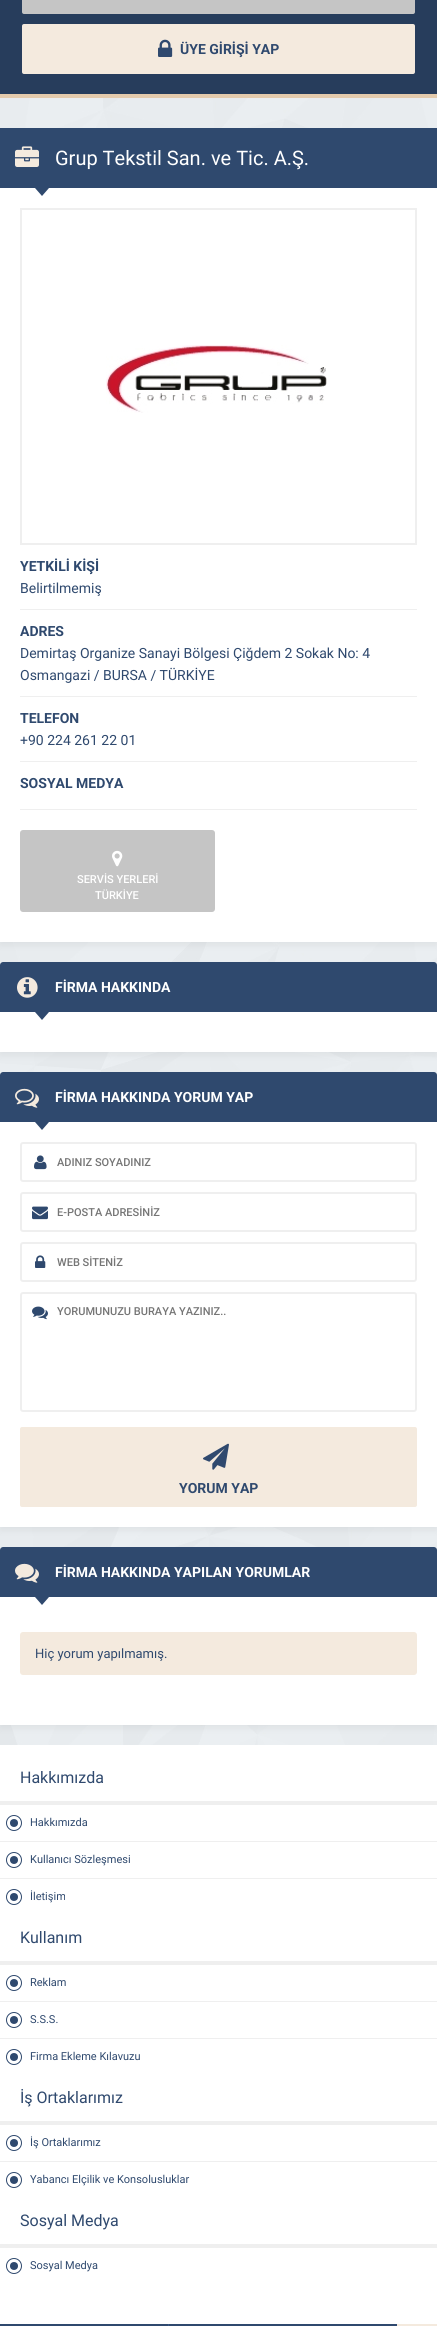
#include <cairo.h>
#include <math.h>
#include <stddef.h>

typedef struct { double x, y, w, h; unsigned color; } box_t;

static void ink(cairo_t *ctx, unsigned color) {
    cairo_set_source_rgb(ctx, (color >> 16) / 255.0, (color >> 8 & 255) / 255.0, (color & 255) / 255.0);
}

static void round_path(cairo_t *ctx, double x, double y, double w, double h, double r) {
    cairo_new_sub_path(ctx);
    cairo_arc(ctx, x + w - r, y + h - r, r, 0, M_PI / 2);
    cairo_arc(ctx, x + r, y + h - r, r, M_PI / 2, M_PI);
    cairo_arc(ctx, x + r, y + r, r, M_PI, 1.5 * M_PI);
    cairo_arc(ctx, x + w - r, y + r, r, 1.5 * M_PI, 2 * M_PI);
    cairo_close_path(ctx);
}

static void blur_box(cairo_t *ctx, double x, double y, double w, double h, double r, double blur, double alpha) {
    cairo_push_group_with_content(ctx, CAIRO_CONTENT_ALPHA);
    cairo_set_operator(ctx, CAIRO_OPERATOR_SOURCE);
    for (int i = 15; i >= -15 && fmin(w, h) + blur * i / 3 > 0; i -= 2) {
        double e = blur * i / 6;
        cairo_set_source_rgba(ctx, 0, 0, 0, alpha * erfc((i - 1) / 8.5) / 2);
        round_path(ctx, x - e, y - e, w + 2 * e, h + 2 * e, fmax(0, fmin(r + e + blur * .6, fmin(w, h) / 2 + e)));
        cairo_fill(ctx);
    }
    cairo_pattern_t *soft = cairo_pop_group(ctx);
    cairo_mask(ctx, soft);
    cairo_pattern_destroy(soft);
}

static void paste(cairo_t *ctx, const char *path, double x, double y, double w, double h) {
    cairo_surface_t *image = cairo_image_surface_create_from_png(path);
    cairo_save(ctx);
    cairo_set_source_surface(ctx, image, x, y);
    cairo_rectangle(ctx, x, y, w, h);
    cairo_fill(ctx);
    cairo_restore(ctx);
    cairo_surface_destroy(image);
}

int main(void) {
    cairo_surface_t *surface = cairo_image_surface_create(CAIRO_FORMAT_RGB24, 437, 2326);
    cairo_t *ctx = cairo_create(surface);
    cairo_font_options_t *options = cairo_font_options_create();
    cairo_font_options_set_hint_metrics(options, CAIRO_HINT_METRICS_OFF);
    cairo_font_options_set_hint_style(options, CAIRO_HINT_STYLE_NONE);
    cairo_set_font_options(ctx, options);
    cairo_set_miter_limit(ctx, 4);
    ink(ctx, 0xFFFFFF);
    cairo_paint(ctx);
    paste(ctx, "media/1.png", 0, 98, 437, 1647);
    ink(ctx, 0x273D5C);
    cairo_rectangle(ctx, 0, 0, 437, 94);
    cairo_fill(ctx);
    ink(ctx, 0xC5C5C5);
    round_path(ctx, 22, -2, 393, 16, 2);
    cairo_fill(ctx);
    ink(ctx, 0xF4EADE);
    round_path(ctx, 22, 24, 393, 50, 2);
    cairo_fill(ctx);
    paste(ctx, "media/2.png", 158, 39, 15, 18);
    cairo_select_font_face(ctx, "Roboto", CAIRO_FONT_SLANT_NORMAL, CAIRO_FONT_WEIGHT_BOLD);
    cairo_set_font_size(ctx, 14);
    ink(ctx, 0x2F496E);
    cairo_move_to(ctx, 180, 54);
    cairo_show_text(ctx, "ÜYE GİRİŞİ YAP");
    ink(ctx, 0xE3CAAC);
    cairo_rectangle(ctx, 0, 94, 437, 4);
    cairo_fill(ctx);
    ink(ctx, 0x000000);
    blur_box(ctx, 0, 191, 437, 754, 0, 4, 0.06);
    ink(ctx, 0x2F496E);
    cairo_rectangle(ctx, 0, 128, 437, 60);
    cairo_fill(ctx);
    paste(ctx, "media/3.png", 15, 146, 24, 21);
    cairo_select_font_face(ctx, "Roboto", CAIRO_FONT_SLANT_NORMAL, CAIRO_FONT_WEIGHT_NORMAL);
    cairo_set_font_size(ctx, 20);
    ink(ctx, 0xFFFFFF);
    cairo_move_to(ctx, 55, 165);
    cairo_show_text(ctx, "Grup Tekstil San. ve Tic. A.Ş.");
    cairo_rectangle(ctx, 0, 188, 437, 754);
    cairo_fill(ctx);
    ink(ctx, 0x2F496E);
    cairo_new_path(ctx);
    cairo_move_to(ctx, 35, 188);
    cairo_line_to(ctx, 49, 188);
    cairo_line_to(ctx, 42, 196);
    cairo_close_path(ctx);
    cairo_fill(ctx);
    cairo_rectangle(ctx, 21, 209, 395, 335);
    ink(ctx, 0xEFEFEF);
    cairo_stroke(ctx);
    paste(ctx, "media/4.png", 106, 345, 221, 68);
    cairo_rectangle(ctx, 20, 609, 397, 1);
    cairo_fill(ctx);
    cairo_select_font_face(ctx, "Roboto", CAIRO_FONT_SLANT_NORMAL, CAIRO_FONT_WEIGHT_BOLD);
    cairo_set_font_size(ctx, 14);
    ink(ctx, 0x2F496E);
    cairo_move_to(ctx, 20, 571);
    cairo_show_text(ctx, "YETKİLİ KİŞİ");
    cairo_select_font_face(ctx, "Roboto", CAIRO_FONT_SLANT_NORMAL, CAIRO_FONT_WEIGHT_NORMAL);
    cairo_move_to(ctx, 20, 593);
    cairo_show_text(ctx, "Belirtilmemiş");
    ink(ctx, 0xEFEFEF);
    cairo_rectangle(ctx, 20, 696, 397, 1);
    cairo_fill(ctx);
    cairo_select_font_face(ctx, "Roboto", CAIRO_FONT_SLANT_NORMAL, CAIRO_FONT_WEIGHT_BOLD);
    ink(ctx, 0x2F496E);
    cairo_move_to(ctx, 20, 636);
    cairo_show_text(ctx, "ADRES");
    cairo_select_font_face(ctx, "Roboto", CAIRO_FONT_SLANT_NORMAL, CAIRO_FONT_WEIGHT_NORMAL);
    cairo_move_to(ctx, 20, 658);
    cairo_show_text(ctx, "Demirtaş Organize Sanayi Bölgesi Çiğdem 2 Sokak No: 4");
    cairo_move_to(ctx, 20, 680);
    cairo_show_text(ctx, "Osmangazi / BURSA / TÜRKİYE");
    ink(ctx, 0xEFEFEF);
    cairo_rectangle(ctx, 20, 761, 397, 1);
    cairo_fill(ctx);
    cairo_select_font_face(ctx, "Roboto", CAIRO_FONT_SLANT_NORMAL, CAIRO_FONT_WEIGHT_BOLD);
    ink(ctx, 0x2F496E);
    cairo_move_to(ctx, 20, 723);
    cairo_show_text(ctx, "TELEFON");
    cairo_select_font_face(ctx, "Roboto", CAIRO_FONT_SLANT_NORMAL, CAIRO_FONT_WEIGHT_NORMAL);
    cairo_move_to(ctx, 20, 745);
    cairo_show_text(ctx, "+90 224 261 22 01");
    cairo_select_font_face(ctx, "Roboto", CAIRO_FONT_SLANT_NORMAL, CAIRO_FONT_WEIGHT_BOLD);
    cairo_move_to(ctx, 20, 788);
    cairo_show_text(ctx, "SOSYAL MEDYA");
    ink(ctx, 0xEFEFEF);
    cairo_rectangle(ctx, 20, 809, 397, 1);
    cairo_fill(ctx);
    ink(ctx, 0xC5C5C5);
    round_path(ctx, 20, 830, 195, 82, 3);
    cairo_fill(ctx);
    paste(ctx, "media/5.png", 112, 850, 11, 17);
    cairo_select_font_face(ctx, "Roboto Medium", CAIRO_FONT_SLANT_NORMAL, CAIRO_FONT_WEIGHT_NORMAL);
    cairo_set_font_size(ctx, 11);
    ink(ctx, 0xFFFFFF);
    cairo_move_to(ctx, 77, 883);
    cairo_show_text(ctx, "SERVİS YERLERİ");
    cairo_move_to(ctx, 95, 899);
    cairo_show_text(ctx, "TÜRKİYE");
    ink(ctx, 0x000000);
    blur_box(ctx, 0, 1015, 437, 40, 0, 4, 0.06);
    ink(ctx, 0x2F496E);
    cairo_new_path(ctx);
    cairo_move_to(ctx, 3, 962);
    cairo_line_to(ctx, 434, 962);
    cairo_curve_to(ctx, 435.5, 962, 437, 963.5, 437, 965);
    cairo_line_to(ctx, 437, 1012);
    cairo_line_to(ctx, 0, 1012);
    cairo_line_to(ctx, 0, 965);
    cairo_curve_to(ctx, 0, 963.5, 1.5, 962, 3, 962);
    cairo_close_path(ctx);
    cairo_fill(ctx);
    paste(ctx, "media/6.png", 17, 977, 21, 21);
    cairo_select_font_face(ctx, "Roboto", CAIRO_FONT_SLANT_NORMAL, CAIRO_FONT_WEIGHT_BOLD);
    cairo_set_font_size(ctx, 14);
    ink(ctx, 0xFFFFFF);
    cairo_move_to(ctx, 55, 992);
    cairo_show_text(ctx, "FİRMA HAKKINDA");
    cairo_rectangle(ctx, 0, 1012, 437, 40);
    cairo_fill(ctx);
    ink(ctx, 0x2F496E);
    cairo_new_path(ctx);
    cairo_move_to(ctx, 35, 1012);
    cairo_line_to(ctx, 49, 1012);
    cairo_line_to(ctx, 42, 1020);
    cairo_close_path(ctx);
    cairo_fill(ctx);
    ink(ctx, 0x000000);
    blur_box(ctx, 0, 1125, 437, 405, 0, 4, 0.06);
    ink(ctx, 0x2F496E);
    cairo_new_path(ctx);
    cairo_move_to(ctx, 3, 1072);
    cairo_line_to(ctx, 434, 1072);
    cairo_curve_to(ctx, 435.5, 1072, 437, 1073.5, 437, 1075);
    cairo_line_to(ctx, 437, 1122);
    cairo_line_to(ctx, 0, 1122);
    cairo_line_to(ctx, 0, 1075);
    cairo_curve_to(ctx, 0, 1073.5, 1.5, 1072, 3, 1072);
    cairo_close_path(ctx);
    cairo_fill(ctx);
    paste(ctx, "media/7.png", 15, 1088, 24, 20);
    ink(ctx, 0xFFFFFF);
    cairo_move_to(ctx, 55, 1102);
    cairo_show_text(ctx, "FİRMA HAKKINDA YORUM YAP");
    cairo_rectangle(ctx, 0, 1122, 437, 405);
    cairo_fill(ctx);
    ink(ctx, 0x2F496E);
    cairo_new_path(ctx);
    cairo_move_to(ctx, 35, 1122);
    cairo_line_to(ctx, 49, 1122);
    cairo_line_to(ctx, 42, 1130);
    cairo_close_path(ctx);
    cairo_fill(ctx);
    round_path(ctx, 21, 1143, 395, 38, 2);
    ink(ctx, 0xEFEFEF);
    cairo_stroke(ctx);
    paste(ctx, "media/8.png", 34, 1155, 13, 15);
    cairo_select_font_face(ctx, "Roboto Medium", CAIRO_FONT_SLANT_NORMAL, CAIRO_FONT_WEIGHT_NORMAL);
    cairo_set_font_size(ctx, 11);
    ink(ctx, 0x757575);
    cairo_move_to(ctx, 57, 1166);
    cairo_show_text(ctx, "ADINIZ SOYADINIZ");
    round_path(ctx, 21, 1193, 395, 38, 2);
    ink(ctx, 0xEFEFEF);
    cairo_stroke(ctx);
    paste(ctx, "media/9.png", 32, 1206, 16, 14);
    ink(ctx, 0x757575);
    cairo_move_to(ctx, 57, 1216);
    cairo_show_text(ctx, "E-POSTA ADRESİNİZ");
    round_path(ctx, 21, 1243, 395, 38, 2);
    ink(ctx, 0xEFEFEF);
    cairo_stroke(ctx);
    paste(ctx, "media/10.png", 35, 1255, 11, 13);
    ink(ctx, 0x757575);
    cairo_move_to(ctx, 57, 1266);
    cairo_show_text(ctx, "WEB SİTENİZ");
    round_path(ctx, 21, 1293, 395, 118, 2);
    ink(ctx, 0xEFEFEF);
    cairo_stroke(ctx);
    paste(ctx, "media/11.png", 32, 1306, 16, 14);
    ink(ctx, 0x757575);
    cairo_move_to(ctx, 57, 1315);
    cairo_show_text(ctx, "YORUMUNUZU BURAYA YAZINIZ..");
    ink(ctx, 0xF4EADE);
    round_path(ctx, 20, 1427, 397, 80, 2);
    cairo_fill(ctx);
    paste(ctx, "media/12.png", 203, 1443, 26, 27);
    cairo_select_font_face(ctx, "Roboto", CAIRO_FONT_SLANT_NORMAL, CAIRO_FONT_WEIGHT_BOLD);
    cairo_set_font_size(ctx, 14);
    ink(ctx, 0x2F496E);
    cairo_move_to(ctx, 179, 1493);
    cairo_show_text(ctx, "YORUM YAP");
    ink(ctx, 0x000000);
    blur_box(ctx, 0, 1600, 437, 128, 0, 4, 0.06);
    ink(ctx, 0x2F496E);
    cairo_new_path(ctx);
    cairo_move_to(ctx, 3, 1547);
    cairo_line_to(ctx, 434, 1547);
    cairo_curve_to(ctx, 435.5, 1547, 437, 1548.5, 437, 1550);
    cairo_line_to(ctx, 437, 1597);
    cairo_line_to(ctx, 0, 1597);
    cairo_line_to(ctx, 0, 1550);
    cairo_curve_to(ctx, 0, 1548.5, 1.5, 1547, 3, 1547);
    cairo_close_path(ctx);
    cairo_fill(ctx);
    paste(ctx, "media/13.png", 15, 1563, 24, 20);
    ink(ctx, 0xFFFFFF);
    cairo_move_to(ctx, 55, 1577);
    cairo_show_text(ctx, "FİRMA HAKKINDA YAPILAN YORUMLAR");
    cairo_rectangle(ctx, 0, 1597, 437, 128);
    cairo_fill(ctx);
    ink(ctx, 0x2F496E);
    cairo_new_path(ctx);
    cairo_move_to(ctx, 35, 1597);
    cairo_line_to(ctx, 49, 1597);
    cairo_line_to(ctx, 42, 1605);
    cairo_close_path(ctx);
    cairo_fill(ctx);
    ink(ctx, 0xF4EADE);
    round_path(ctx, 20, 1632, 397, 43, 3);
    cairo_fill(ctx);
    cairo_select_font_face(ctx, "Roboto", CAIRO_FONT_SLANT_NORMAL, CAIRO_FONT_WEIGHT_NORMAL);
    cairo_set_font_size(ctx, 13);
    ink(ctx, 0x2F496E);
    cairo_move_to(ctx, 35, 1658);
    cairo_show_text(ctx, "Hiç yorum yapılmamış.");
    ink(ctx, 0xEFEFEF);
    cairo_rectangle(ctx, 0, 1801, 437, 4);
    cairo_fill(ctx);
    cairo_set_font_size(ctx, 16);
    ink(ctx, 0x2F496E);
    cairo_move_to(ctx, 20, 1783);
    cairo_show_text(ctx, "Hakkımızda");
    cairo_new_path(ctx);
    cairo_arc(ctx, 14, 1823, 4, 0, 2 * M_PI);
    cairo_fill(ctx);
    cairo_arc(ctx, 14, 1823, 7.5, 0, 2 * M_PI);
    cairo_set_line_width(ctx, 1);
    cairo_stroke(ctx);
    ink(ctx, 0xEFEFEF);
    cairo_rectangle(ctx, 0, 1841, 437, 1);
    cairo_fill(ctx);
    cairo_set_font_size(ctx, 11);
    ink(ctx, 0x2F496E);
    cairo_move_to(ctx, 30, 1826);
    cairo_show_text(ctx, "Hakkımızda");
    cairo_new_path(ctx);
    cairo_arc(ctx, 14, 1860, 4, 0, 2 * M_PI);
    cairo_fill(ctx);
    cairo_arc(ctx, 14, 1860, 7.5, 0, 2 * M_PI);
    cairo_stroke(ctx);
    ink(ctx, 0xEFEFEF);
    cairo_rectangle(ctx, 0, 1878, 437, 1);
    cairo_fill(ctx);
    ink(ctx, 0x2F496E);
    cairo_move_to(ctx, 30, 1863);
    cairo_show_text(ctx, "Kullanıcı Sözleşmesi");
    cairo_new_path(ctx);
    cairo_arc(ctx, 14, 1897, 4, 0, 2 * M_PI);
    cairo_fill(ctx);
    cairo_arc(ctx, 14, 1897, 7.5, 0, 2 * M_PI);
    cairo_stroke(ctx);
    cairo_move_to(ctx, 30, 1900);
    cairo_show_text(ctx, "İletişim");
    ink(ctx, 0xEFEFEF);
    cairo_rectangle(ctx, 0, 1961, 437, 4);
    cairo_fill(ctx);
    cairo_set_font_size(ctx, 16);
    ink(ctx, 0x2F496E);
    cairo_move_to(ctx, 20, 1943);
    cairo_show_text(ctx, "Kullanım");
    cairo_new_path(ctx);
    cairo_arc(ctx, 14, 1983, 4, 0, 2 * M_PI);
    cairo_fill(ctx);
    cairo_arc(ctx, 14, 1983, 7.5, 0, 2 * M_PI);
    cairo_stroke(ctx);
    ink(ctx, 0xEFEFEF);
    cairo_rectangle(ctx, 0, 2001, 437, 1);
    cairo_fill(ctx);
    cairo_set_font_size(ctx, 11);
    ink(ctx, 0x2F496E);
    cairo_move_to(ctx, 30, 1986);
    cairo_show_text(ctx, "Reklam");
    cairo_new_path(ctx);
    cairo_arc(ctx, 14, 2020, 4, 0, 2 * M_PI);
    cairo_fill(ctx);
    cairo_arc(ctx, 14, 2020, 7.5, 0, 2 * M_PI);
    cairo_stroke(ctx);
    ink(ctx, 0xEFEFEF);
    cairo_rectangle(ctx, 0, 2038, 437, 1);
    cairo_fill(ctx);
    ink(ctx, 0x2F496E);
    cairo_move_to(ctx, 30, 2023);
    cairo_show_text(ctx, "S.S.S.");
    cairo_new_path(ctx);
    cairo_arc(ctx, 14, 2057, 4, 0, 2 * M_PI);
    cairo_fill(ctx);
    cairo_arc(ctx, 14, 2057, 7.5, 0, 2 * M_PI);
    cairo_stroke(ctx);
    cairo_move_to(ctx, 30, 2060);
    cairo_show_text(ctx, "Firma Ekleme Kılavuzu");
    ink(ctx, 0xEFEFEF);
    cairo_rectangle(ctx, 0, 2121, 437, 4);
    cairo_fill(ctx);
    cairo_set_font_size(ctx, 16);
    ink(ctx, 0x2F496E);
    cairo_move_to(ctx, 20, 2103);
    cairo_show_text(ctx, "İş Ortaklarımız");
    cairo_new_path(ctx);
    cairo_arc(ctx, 14, 2143, 4, 0, 2 * M_PI);
    cairo_fill(ctx);
    cairo_arc(ctx, 14, 2143, 7.5, 0, 2 * M_PI);
    cairo_stroke(ctx);
    ink(ctx, 0xEFEFEF);
    cairo_rectangle(ctx, 0, 2161, 437, 1);
    cairo_fill(ctx);
    cairo_set_font_size(ctx, 11);
    ink(ctx, 0x2F496E);
    cairo_move_to(ctx, 30, 2146);
    cairo_show_text(ctx, "İş Ortaklarımız");
    cairo_new_path(ctx);
    cairo_arc(ctx, 14, 2180, 4, 0, 2 * M_PI);
    cairo_fill(ctx);
    cairo_arc(ctx, 14, 2180, 7.5, 0, 2 * M_PI);
    cairo_stroke(ctx);
    cairo_move_to(ctx, 30, 2183);
    cairo_show_text(ctx, "Yabancı Elçilik ve Konsolusluklar");
    ink(ctx, 0xEFEFEF);
    cairo_rectangle(ctx, 0, 2244, 437, 4);
    cairo_fill(ctx);
    cairo_set_font_size(ctx, 16);
    ink(ctx, 0x2F496E);
    cairo_move_to(ctx, 20, 2226);
    cairo_show_text(ctx, "Sosyal Medya");
    cairo_new_path(ctx);
    cairo_arc(ctx, 14, 2266, 4, 0, 2 * M_PI);
    cairo_fill(ctx);
    cairo_arc(ctx, 14, 2266, 7.5, 0, 2 * M_PI);
    cairo_stroke(ctx);
    cairo_set_font_size(ctx, 11);
    cairo_move_to(ctx, 30, 2269);
    cairo_show_text(ctx, "Sosyal Medya");
    {
        static const box_t items[] = {
            {0, 2324, 397, 2, 0x2F496E},
            {168, 2324, 1, 2, 0x385783},
            {397, 2324, 40, 2, 0xF4EADE},
        };
        for (size_t i = 0; i < sizeof items / sizeof *items; i++) {
            ink(ctx, items[i].color);
            cairo_rectangle(ctx, items[i].x, items[i].y, items[i].w, items[i].h);
            cairo_fill(ctx);
        }
    }
    cairo_surface_write_to_png(surface, "image.png");
    cairo_font_options_destroy(options);
    cairo_destroy(ctx);
    cairo_surface_destroy(surface);
    return 0;
}
